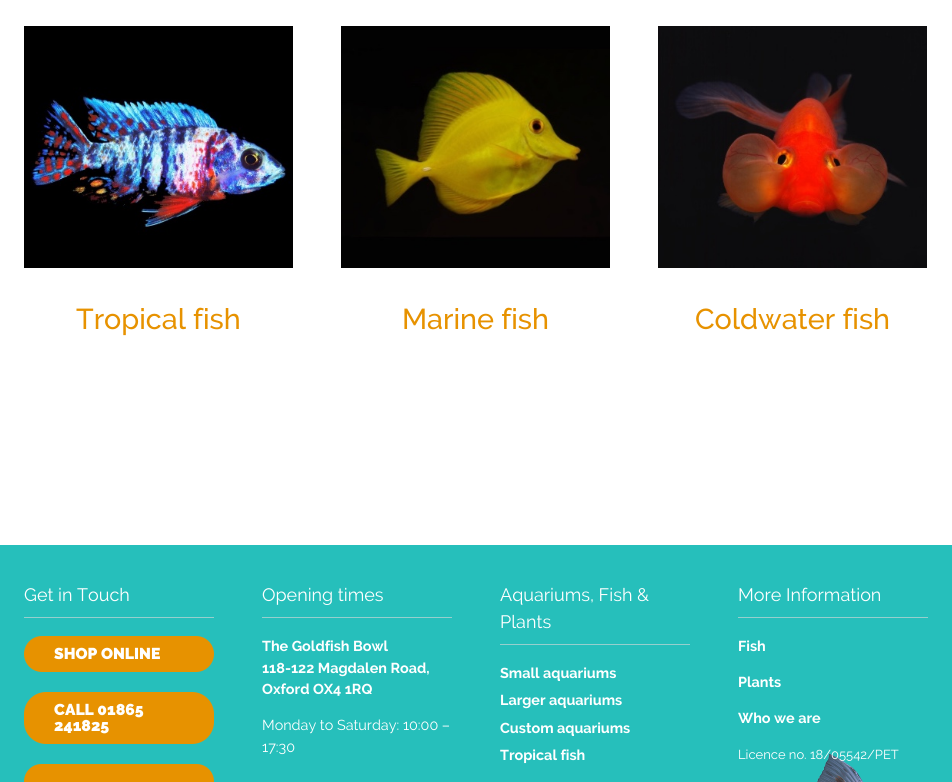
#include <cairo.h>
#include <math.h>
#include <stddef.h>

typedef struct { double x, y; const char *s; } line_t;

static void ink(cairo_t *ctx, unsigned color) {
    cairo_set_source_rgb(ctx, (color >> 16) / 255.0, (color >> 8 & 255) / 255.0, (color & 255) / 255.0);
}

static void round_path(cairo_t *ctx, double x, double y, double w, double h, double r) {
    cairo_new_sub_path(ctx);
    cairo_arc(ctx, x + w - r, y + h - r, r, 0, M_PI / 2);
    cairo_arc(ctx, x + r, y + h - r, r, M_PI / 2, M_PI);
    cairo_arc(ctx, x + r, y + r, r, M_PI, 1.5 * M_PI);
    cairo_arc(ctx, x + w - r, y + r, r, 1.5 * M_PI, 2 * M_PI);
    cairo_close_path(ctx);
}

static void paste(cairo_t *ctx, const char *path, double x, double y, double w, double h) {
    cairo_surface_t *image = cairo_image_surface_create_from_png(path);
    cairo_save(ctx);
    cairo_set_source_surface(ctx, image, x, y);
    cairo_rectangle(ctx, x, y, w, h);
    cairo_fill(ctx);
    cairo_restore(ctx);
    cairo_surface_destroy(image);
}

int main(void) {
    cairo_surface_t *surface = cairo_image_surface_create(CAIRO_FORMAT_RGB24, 952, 782);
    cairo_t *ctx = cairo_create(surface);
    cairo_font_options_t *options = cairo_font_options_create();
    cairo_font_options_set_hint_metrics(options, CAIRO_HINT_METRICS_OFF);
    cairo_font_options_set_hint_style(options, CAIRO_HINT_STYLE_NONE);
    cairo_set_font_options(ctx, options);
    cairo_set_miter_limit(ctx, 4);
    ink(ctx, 0xFFFFFF);
    cairo_paint(ctx);
    paste(ctx, "media/1.png", 24, 26, 269, 242);
    cairo_select_font_face(ctx, "Raleway Medium", CAIRO_FONT_SLANT_NORMAL, CAIRO_FONT_WEIGHT_NORMAL);
    cairo_set_font_size(ctx, 28.75);
    ink(ctx, 0xE79200);
    cairo_move_to(ctx, 76, 329);
    cairo_show_text(ctx, "Tropical fish");
    paste(ctx, "media/2.png", 341, 26, 269, 242);
    cairo_move_to(ctx, 402, 329);
    cairo_show_text(ctx, "Marine fish");
    paste(ctx, "media/3.png", 658, 26, 269, 242);
    cairo_move_to(ctx, 695, 329);
    cairo_show_text(ctx, "Coldwater fish");
    ink(ctx, 0x26BFBB);
    cairo_rectangle(ctx, 0, 545, 952, 237);
    cairo_fill(ctx);
    paste(ctx, "media/4.png", 817, 753, 46, 29);
    ink(ctx, 0x96CFCD);
    cairo_rectangle(ctx, 24, 617, 190, 1);
    cairo_fill(ctx);
    cairo_select_font_face(ctx, "Raleway", CAIRO_FONT_SLANT_NORMAL, CAIRO_FONT_WEIGHT_NORMAL);
    cairo_set_font_size(ctx, 18);
    ink(ctx, 0xFFFFFF);
    cairo_move_to(ctx, 24, 601);
    cairo_show_text(ctx, "Get in Touch");
    ink(ctx, 0xE79200);
    round_path(ctx, 24, 636, 190, 36, 18);
    cairo_fill(ctx);
    cairo_select_font_face(ctx, "Raleway Black", CAIRO_FONT_SLANT_NORMAL, CAIRO_FONT_WEIGHT_NORMAL);
    cairo_set_font_size(ctx, 15.75);
    ink(ctx, 0xFFFFFF);
    cairo_move_to(ctx, 54, 659);
    cairo_show_text(ctx, "SHOP ONLINE");
    ink(ctx, 0xE79200);
    round_path(ctx, 24, 692, 190, 52, 22);
    cairo_fill(ctx);
    ink(ctx, 0xFFFFFF);
    cairo_move_to(ctx, 54, 715);
    cairo_show_text(ctx, "CALL 01865");
    cairo_move_to(ctx, 54, 731);
    cairo_show_text(ctx, "241825");
    ink(ctx, 0xE79200);
    round_path(ctx, 24, 764, 190, 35, 17.5);
    cairo_fill(ctx);
    ink(ctx, 0x96CFCD);
    cairo_rectangle(ctx, 262, 617, 190, 1);
    cairo_fill(ctx);
    cairo_select_font_face(ctx, "Raleway", CAIRO_FONT_SLANT_NORMAL, CAIRO_FONT_WEIGHT_NORMAL);
    cairo_set_font_size(ctx, 18);
    ink(ctx, 0xFFFFFF);
    cairo_move_to(ctx, 262, 601);
    cairo_show_text(ctx, "Opening times");
    cairo_select_font_face(ctx, "Raleway", CAIRO_FONT_SLANT_NORMAL, CAIRO_FONT_WEIGHT_BOLD);
    cairo_set_font_size(ctx, 14.4);
    {
        static const line_t items[] = {
            {262, 651, "The Goldfish Bowl"},
            {262, 673, "118-122 Magdalen Road,"},
            {262, 694, "Oxford OX4 1RQ"},
        };
        for (size_t i = 0; i < sizeof items / sizeof *items; i++) {
            cairo_move_to(ctx, items[i].x, items[i].y);
            cairo_show_text(ctx, items[i].s);
        }
    }
    cairo_select_font_face(ctx, "Raleway", CAIRO_FONT_SLANT_NORMAL, CAIRO_FONT_WEIGHT_NORMAL);
    cairo_move_to(ctx, 262, 730);
    cairo_show_text(ctx, "Monday to Saturday: 10:00 –");
    cairo_move_to(ctx, 262, 752);
    cairo_show_text(ctx, "17:30");
    ink(ctx, 0x96CFCD);
    cairo_rectangle(ctx, 500, 644, 190, 1);
    cairo_fill(ctx);
    cairo_set_font_size(ctx, 18);
    ink(ctx, 0xFFFFFF);
    cairo_move_to(ctx, 500, 601);
    cairo_show_text(ctx, "Aquariums, Fish &");
    cairo_move_to(ctx, 500, 628);
    cairo_show_text(ctx, "Plants");
    cairo_select_font_face(ctx, "Raleway", CAIRO_FONT_SLANT_NORMAL, CAIRO_FONT_WEIGHT_BOLD);
    cairo_set_font_size(ctx, 14.4);
    {
        static const line_t items[] = {
            {500, 678, "Small aquariums"},
            {500, 705, "Larger aquariums"},
            {500, 733, "Custom aquariums"},
            {500, 760, "Tropical fish"},
        };
        for (size_t i = 0; i < sizeof items / sizeof *items; i++) {
            cairo_move_to(ctx, items[i].x, items[i].y);
            cairo_show_text(ctx, items[i].s);
        }
    }
    ink(ctx, 0x96CFCD);
    cairo_rectangle(ctx, 738, 617, 190, 1);
    cairo_fill(ctx);
    cairo_select_font_face(ctx, "Raleway", CAIRO_FONT_SLANT_NORMAL, CAIRO_FONT_WEIGHT_NORMAL);
    cairo_set_font_size(ctx, 18);
    ink(ctx, 0xFFFFFF);
    cairo_move_to(ctx, 738, 601);
    cairo_show_text(ctx, "More Information");
    cairo_select_font_face(ctx, "Raleway", CAIRO_FONT_SLANT_NORMAL, CAIRO_FONT_WEIGHT_BOLD);
    cairo_set_font_size(ctx, 14.4);
    {
        static const line_t items[] = {
            {738, 651, "Fish"},
            {738, 687, "Plants"},
            {738, 723, "Who we are"},
        };
        for (size_t i = 0; i < sizeof items / sizeof *items; i++) {
            cairo_move_to(ctx, items[i].x, items[i].y);
            cairo_show_text(ctx, items[i].s);
        }
    }
    cairo_select_font_face(ctx, "Raleway", CAIRO_FONT_SLANT_NORMAL, CAIRO_FONT_WEIGHT_NORMAL);
    cairo_set_font_size(ctx, 13);
    cairo_move_to(ctx, 738, 759);
    cairo_show_text(ctx, "Licence no. 18/05542/PET");
    cairo_surface_write_to_png(surface, "image.png");
    cairo_font_options_destroy(options);
    cairo_destroy(ctx);
    cairo_surface_destroy(surface);
    return 0;
}
